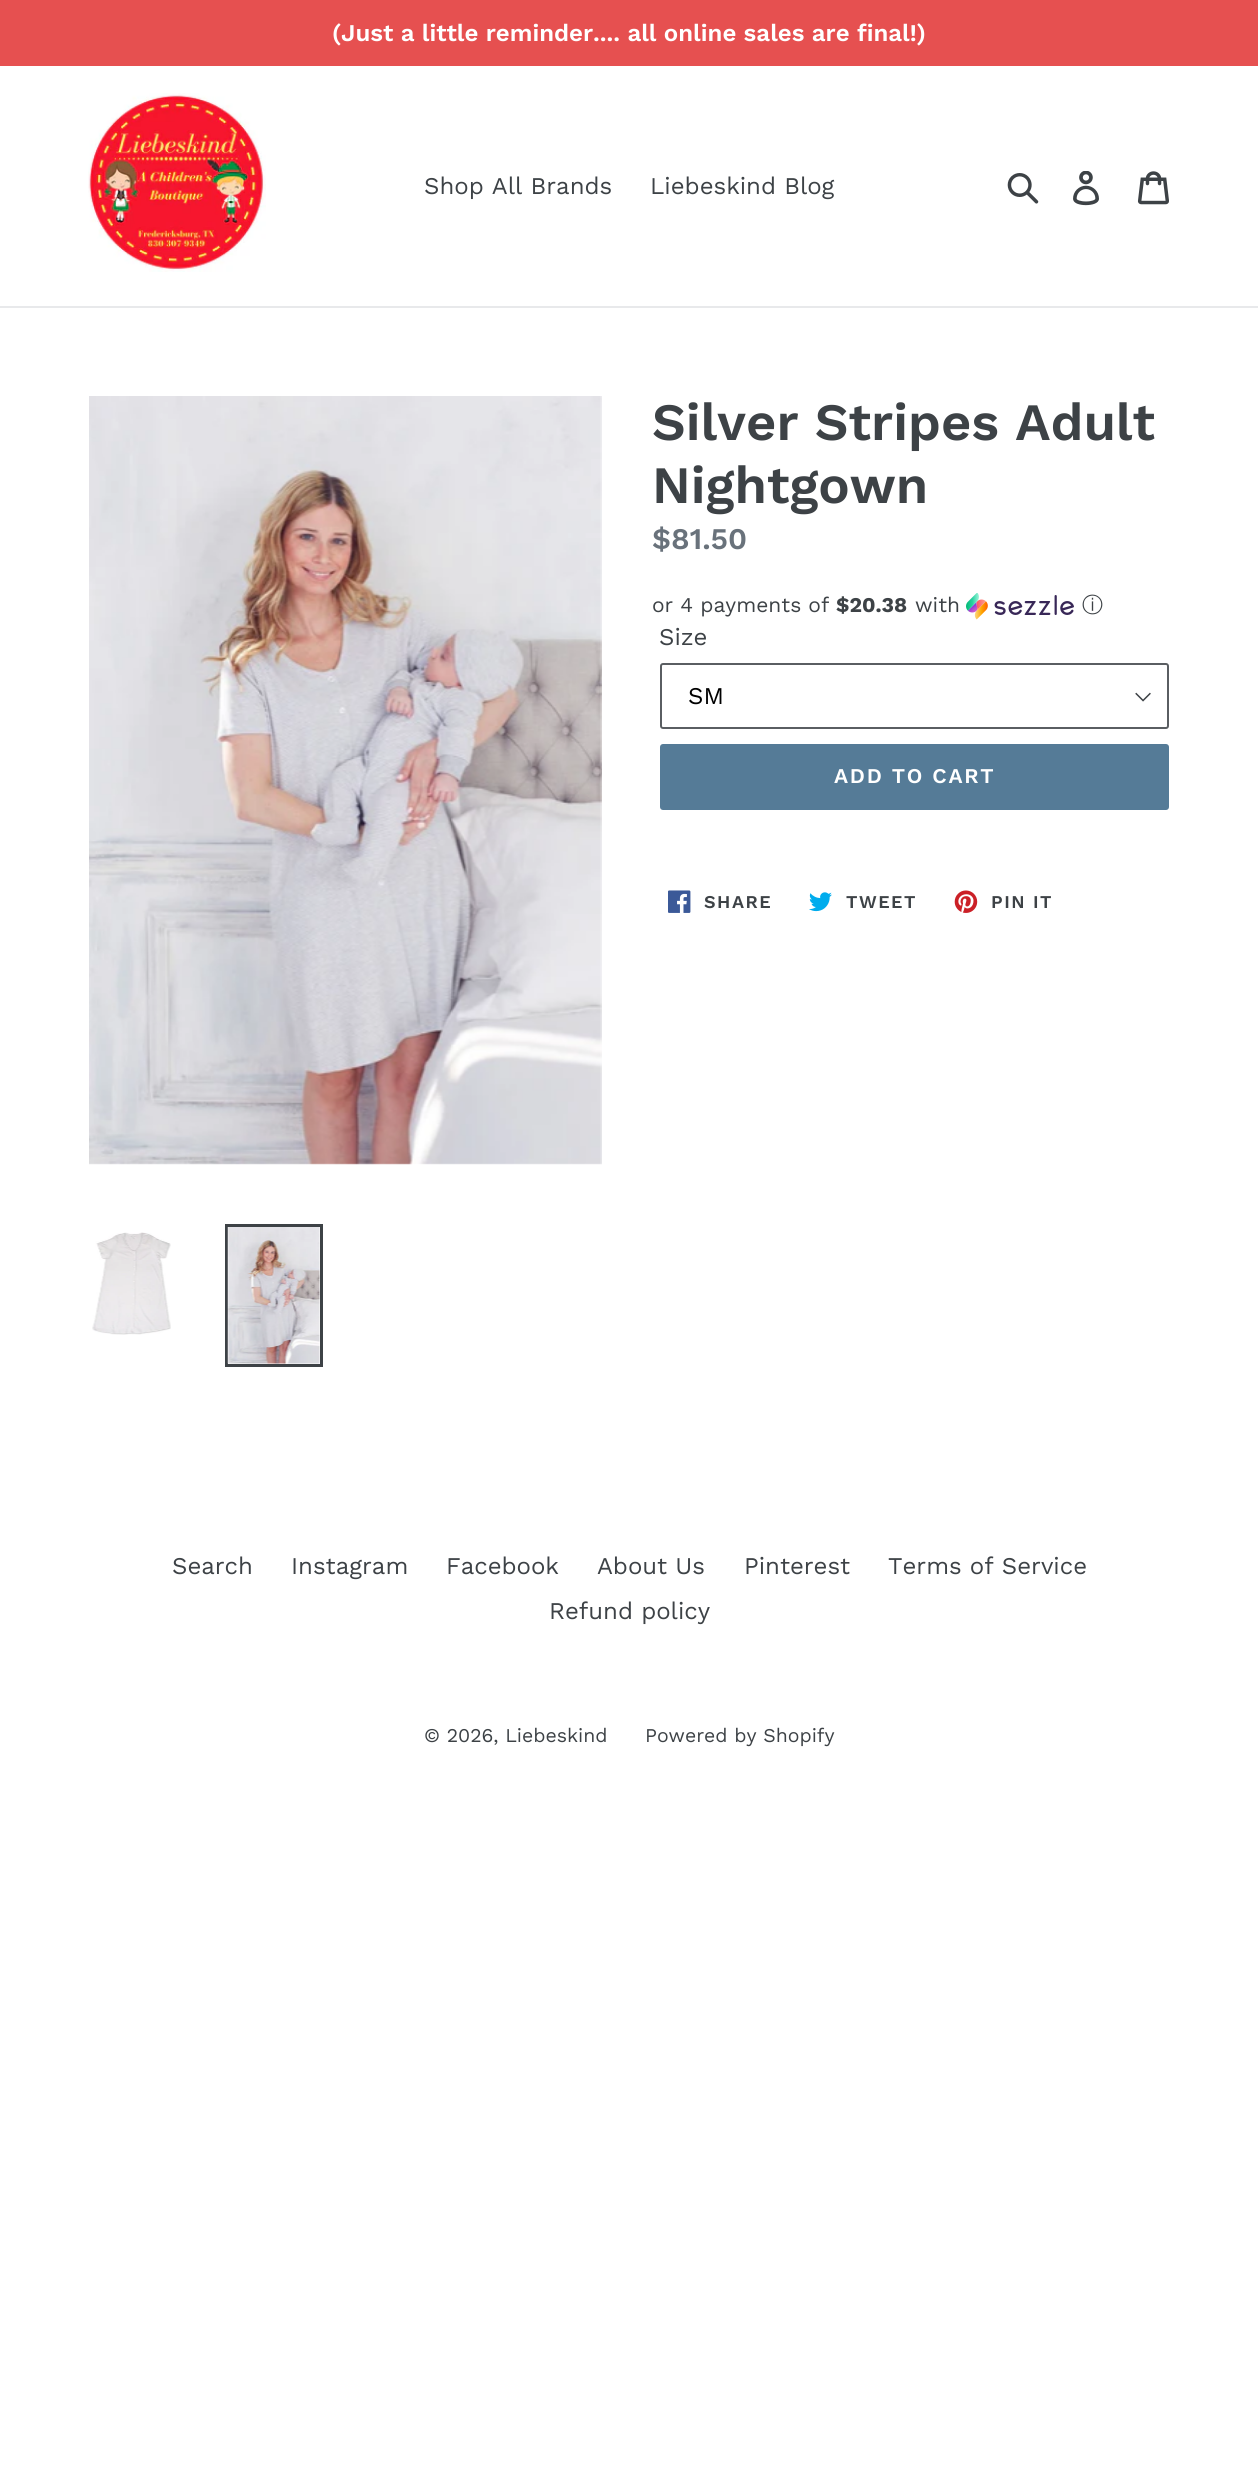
#include <cairo.h>
#include <math.h>
#include <stddef.h>

typedef struct { double x, y; const char *s; } line_t;

static void ink(cairo_t *ctx, unsigned color) {
    cairo_set_source_rgb(ctx, (color >> 16) / 255.0, (color >> 8 & 255) / 255.0, (color & 255) / 255.0);
}

static void write_spaced(cairo_t *ctx, double x, double y, const char *s, double letter, double word) {
    cairo_move_to(ctx, x, y);
    while (*s) {
        char ch[5] = {0};
        int n = 0;
        do ch[n++] = *s++; while ((*s & 0xC0) == 0x80);
        cairo_show_text(ctx, ch);
        cairo_rel_move_to(ctx, letter + word * (*ch == ' '), 0);
    }
}

static void round_path(cairo_t *ctx, double x, double y, double w, double h, double r) {
    cairo_new_sub_path(ctx);
    cairo_arc(ctx, x + w - r, y + h - r, r, 0, M_PI / 2);
    cairo_arc(ctx, x + r, y + h - r, r, M_PI / 2, M_PI);
    cairo_arc(ctx, x + r, y + r, r, M_PI, 1.5 * M_PI);
    cairo_arc(ctx, x + w - r, y + r, r, 1.5 * M_PI, 2 * M_PI);
    cairo_close_path(ctx);
}

static void paste(cairo_t *ctx, const char *path, double x, double y, double w, double h) {
    cairo_surface_t *image = cairo_image_surface_create_from_png(path);
    cairo_save(ctx);
    cairo_set_source_surface(ctx, image, x, y);
    cairo_rectangle(ctx, x, y, w, h);
    cairo_fill(ctx);
    cairo_restore(ctx);
    cairo_surface_destroy(image);
}

int main(void) {
    cairo_surface_t *surface = cairo_image_surface_create(CAIRO_FORMAT_RGB24, 1258, 2472);
    cairo_t *ctx = cairo_create(surface);
    cairo_font_options_t *options = cairo_font_options_create();
    cairo_font_options_set_hint_metrics(options, CAIRO_HINT_METRICS_OFF);
    cairo_font_options_set_hint_style(options, CAIRO_HINT_STYLE_NONE);
    cairo_set_font_options(ctx, options);
    cairo_set_miter_limit(ctx, 4);
    ink(ctx, 0xFFFFFF);
    cairo_paint(ctx);
    ink(ctx, 0xE65050);
    cairo_rectangle(ctx, 0, 0, 1258, 66);
    cairo_fill(ctx);
    cairo_select_font_face(ctx, "Work Sans SemiBold", CAIRO_FONT_SLANT_NORMAL, CAIRO_FONT_WEIGHT_NORMAL);
    cairo_set_font_size(ctx, 24);
    ink(ctx, 0xFFFFFF);
    cairo_move_to(ctx, 332, 41);
    cairo_show_text(ctx, "(Just a little reminder.... all online sales are final!)");
    ink(ctx, 0xE8E9EB);
    cairo_rectangle(ctx, 0, 306, 1258, 2);
    cairo_fill(ctx);
    paste(ctx, "media/1.png", 88, 93, 178, 179);
    cairo_select_font_face(ctx, "Work Sans", CAIRO_FONT_SLANT_NORMAL, CAIRO_FONT_WEIGHT_NORMAL);
    ink(ctx, 0x3D4246);
    cairo_move_to(ctx, 424, 194);
    cairo_show_text(ctx, "Shop All Brands");
    cairo_move_to(ctx, 650, 194);
    cairo_show_text(ctx, "Liebeskind Blog");
    paste(ctx, "media/2.png", 1007, 173, 32, 31);
    paste(ctx, "media/3.png", 1073, 171, 26, 35);
    paste(ctx, "media/4.png", 1137, 171, 32, 34);
    paste(ctx, "media/5.png", 89, 396, 513, 769);
    paste(ctx, "media/6.png", 92, 1232, 79, 103);
    cairo_rectangle(ctx, 226.5, 1225.5, 95, 140);
    cairo_set_line_width(ctx, 3);
    cairo_stroke(ctx);
    paste(ctx, "media/7.png", 227, 1227, 93, 137);
    cairo_select_font_face(ctx, "Work Sans SemiBold", CAIRO_FONT_SLANT_NORMAL, CAIRO_FONT_WEIGHT_NORMAL);
    cairo_set_font_size(ctx, 52.5);
    cairo_move_to(ctx, 652, 440);
    cairo_show_text(ctx, "Silver Stripes Adult");
    cairo_move_to(ctx, 652, 503);
    cairo_show_text(ctx, "Nightgown");
    cairo_set_font_size(ctx, 30);
    ink(ctx, 0x69727B);
    cairo_move_to(ctx, 652, 549);
    cairo_show_text(ctx, "$81.50");
    cairo_select_font_face(ctx, "Work Sans", CAIRO_FONT_SLANT_NORMAL, CAIRO_FONT_WEIGHT_NORMAL);
    cairo_set_font_size(ctx, 21);
    ink(ctx, 0x3D4246);
    cairo_move_to(ctx, 652, 612);
    cairo_show_text(ctx, "or 4 payments of");
    cairo_select_font_face(ctx, "Work Sans", CAIRO_FONT_SLANT_NORMAL, CAIRO_FONT_WEIGHT_BOLD);
    cairo_move_to(ctx, 836, 612);
    cairo_show_text(ctx, "$20.38");
    cairo_select_font_face(ctx, "Work Sans", CAIRO_FONT_SLANT_NORMAL, CAIRO_FONT_WEIGHT_NORMAL);
    cairo_move_to(ctx, 915, 612);
    cairo_show_text(ctx, "with");
    paste(ctx, "media/8.png", 966, 593, 108, 27);
    cairo_select_font_face(ctx, "WenQuanYi Zen Hei Medium", CAIRO_FONT_SLANT_NORMAL, CAIRO_FONT_WEIGHT_NORMAL);
    cairo_move_to(ctx, 1082, 612);
    cairo_show_text(ctx, "ⓘ");
    cairo_select_font_face(ctx, "Work Sans", CAIRO_FONT_SLANT_NORMAL, CAIRO_FONT_WEIGHT_NORMAL);
    cairo_set_font_size(ctx, 24);
    cairo_move_to(ctx, 659, 645);
    cairo_show_text(ctx, "Size");
    paste(ctx, "media/9.png", 1135, 692, 16, 10);
    round_path(ctx, 661, 664, 507, 64, 2);
    ink(ctx, 0x5A5E62);
    cairo_set_line_width(ctx, 2);
    cairo_stroke(ctx);
    ink(ctx, 0x000000);
    cairo_move_to(ctx, 688, 704);
    cairo_show_text(ctx, "SM");
    ink(ctx, 0x557B97);
    round_path(ctx, 660, 744, 509, 66, 3);
    cairo_fill(ctx);
    cairo_select_font_face(ctx, "Work Sans SemiBold", CAIRO_FONT_SLANT_NORMAL, CAIRO_FONT_WEIGHT_NORMAL);
    cairo_set_font_size(ctx, 21);
    ink(ctx, 0xFFFFFF);
    write_spaced(ctx, 834, 783, "ADD TO CART", 1.75, 0);
    paste(ctx, "media/10.png", 668, 890, 23, 23);
    cairo_set_font_size(ctx, 18);
    ink(ctx, 0x3D4246);
    write_spaced(ctx, 704, 908, "SHARE", 1.5, 0);
    paste(ctx, "media/11.png", 809, 892, 23, 20);
    write_spaced(ctx, 846, 908, "TWEET", 1.5, 0);
    paste(ctx, "media/12.png", 954, 890, 24, 23);
    write_spaced(ctx, 991, 908, "PIN IT", 1.5, 0);
    cairo_select_font_face(ctx, "Work Sans", CAIRO_FONT_SLANT_NORMAL, CAIRO_FONT_WEIGHT_NORMAL);
    cairo_set_font_size(ctx, 24);
    {
        static const line_t items[] = {
            {172, 1574, "Search"},
            {291, 1574, "Instagram"},
            {446, 1574, "Facebook"},
            {597, 1574, "About Us"},
            {744, 1574, "Pinterest"},
            {888, 1574, "Terms of Service"},
            {549, 1619, "Refund policy"},
        };
        for (size_t i = 0; i < sizeof items / sizeof *items; i++) {
            cairo_move_to(ctx, items[i].x, items[i].y);
            cairo_show_text(ctx, items[i].s);
        }
    }
    cairo_set_font_size(ctx, 19.5);
    cairo_move_to(ctx, 424, 1742);
    cairo_show_text(ctx, "© 2026, Liebeskind");
    cairo_move_to(ctx, 645, 1742);
    cairo_show_text(ctx, "Powered by Shopify");
    cairo_surface_write_to_png(surface, "image.png");
    cairo_font_options_destroy(options);
    cairo_destroy(ctx);
    cairo_surface_destroy(surface);
    return 0;
}
